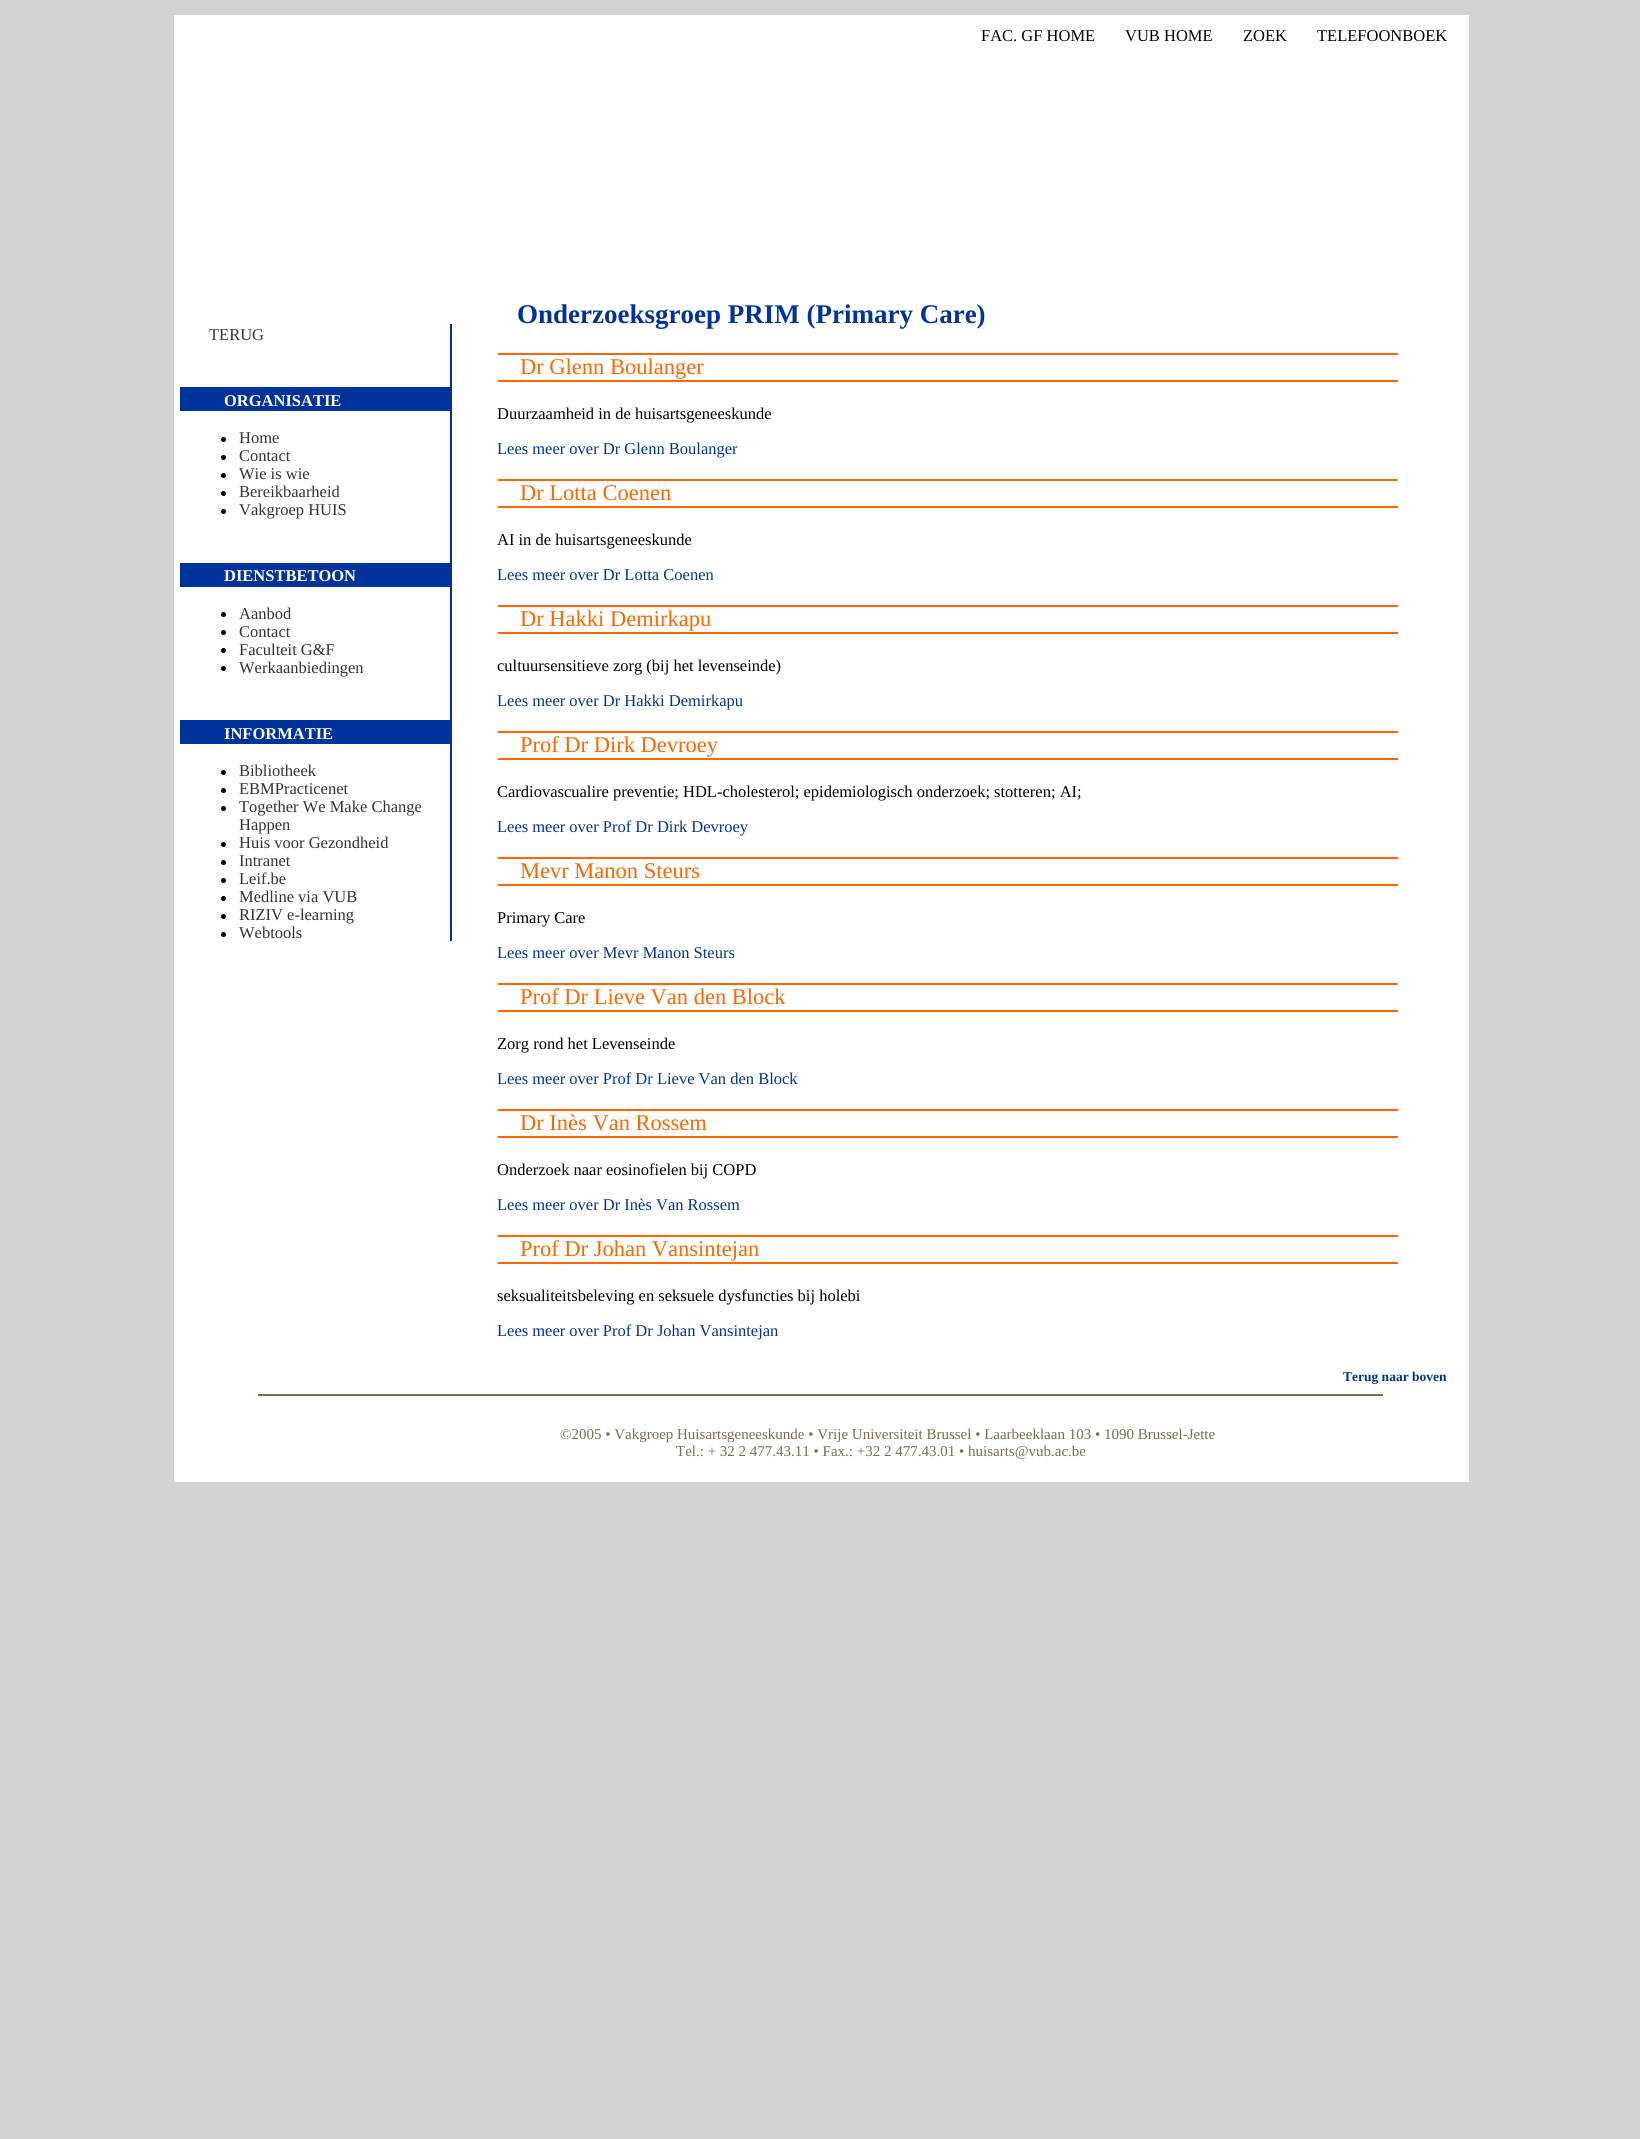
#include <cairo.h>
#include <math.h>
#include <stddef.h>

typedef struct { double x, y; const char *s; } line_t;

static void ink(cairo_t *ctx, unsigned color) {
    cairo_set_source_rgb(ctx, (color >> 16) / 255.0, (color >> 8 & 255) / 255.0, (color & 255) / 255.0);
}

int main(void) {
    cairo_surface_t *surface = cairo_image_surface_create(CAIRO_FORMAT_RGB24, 1640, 2139);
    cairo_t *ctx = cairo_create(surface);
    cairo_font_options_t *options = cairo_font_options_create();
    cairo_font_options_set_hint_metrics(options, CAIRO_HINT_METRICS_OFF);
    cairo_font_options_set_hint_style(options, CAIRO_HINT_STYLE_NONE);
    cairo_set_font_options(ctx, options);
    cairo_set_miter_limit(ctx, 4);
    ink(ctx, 0xD3D3D3);
    cairo_paint(ctx);
    ink(ctx, 0xFFFFFF);
    cairo_rectangle(ctx, 174, 15, 1295, 1467);
    cairo_fill(ctx);
    cairo_select_font_face(ctx, "Liberation Serif", CAIRO_FONT_SLANT_NORMAL, CAIRO_FONT_WEIGHT_NORMAL);
    cairo_set_font_size(ctx, 16.5);
    ink(ctx, 0x000000);
    {
        static const line_t items[] = {
            {981, 41, "FAC. GF HOME"},
            {1125, 41, "VUB HOME"},
            {1243, 41, "ZOEK"},
            {1317, 41, "TELEFOONBOEK"},
        };
        for (size_t i = 0; i < sizeof items / sizeof *items; i++) {
            cairo_move_to(ctx, items[i].x, items[i].y);
            cairo_show_text(ctx, items[i].s);
        }
    }
    ink(ctx, 0x003399);
    cairo_rectangle(ctx, 450, 324, 2, 617);
    cairo_fill(ctx);
    ink(ctx, 0x333333);
    cairo_move_to(ctx, 209, 340);
    cairo_show_text(ctx, "TERUG");
    ink(ctx, 0x003399);
    cairo_rectangle(ctx, 180, 387, 270, 24);
    cairo_fill(ctx);
    cairo_select_font_face(ctx, "Liberation Serif", CAIRO_FONT_SLANT_NORMAL, CAIRO_FONT_WEIGHT_BOLD);
    ink(ctx, 0xFFFFFF);
    cairo_move_to(ctx, 224, 406);
    cairo_show_text(ctx, "ORGANISATIE");
    ink(ctx, 0x000000);
    cairo_new_path(ctx);
    cairo_arc(ctx, 223.5, 439.5, 2.5, 0, 2 * M_PI);
    cairo_fill(ctx);
    cairo_select_font_face(ctx, "Liberation Serif", CAIRO_FONT_SLANT_NORMAL, CAIRO_FONT_WEIGHT_NORMAL);
    ink(ctx, 0x333333);
    cairo_move_to(ctx, 239, 443);
    cairo_show_text(ctx, "Home");
    ink(ctx, 0x000000);
    cairo_new_path(ctx);
    cairo_arc(ctx, 223.5, 457.5, 2.5, 0, 2 * M_PI);
    cairo_fill(ctx);
    ink(ctx, 0x333333);
    cairo_move_to(ctx, 239, 461);
    cairo_show_text(ctx, "Contact");
    ink(ctx, 0x000000);
    cairo_new_path(ctx);
    cairo_arc(ctx, 223.5, 475.5, 2.5, 0, 2 * M_PI);
    cairo_fill(ctx);
    ink(ctx, 0x333333);
    cairo_move_to(ctx, 239, 479);
    cairo_show_text(ctx, "Wie is wie");
    ink(ctx, 0x000000);
    cairo_new_path(ctx);
    cairo_arc(ctx, 223.5, 493.5, 2.5, 0, 2 * M_PI);
    cairo_fill(ctx);
    ink(ctx, 0x333333);
    cairo_move_to(ctx, 239, 497);
    cairo_show_text(ctx, "Bereikbaarheid");
    ink(ctx, 0x000000);
    cairo_new_path(ctx);
    cairo_arc(ctx, 223.5, 511.5, 2.5, 0, 2 * M_PI);
    cairo_fill(ctx);
    ink(ctx, 0x333333);
    cairo_move_to(ctx, 239, 515);
    cairo_show_text(ctx, "Vakgroep HUIS");
    ink(ctx, 0x003399);
    cairo_rectangle(ctx, 180, 563, 270, 24);
    cairo_fill(ctx);
    cairo_select_font_face(ctx, "Liberation Serif", CAIRO_FONT_SLANT_NORMAL, CAIRO_FONT_WEIGHT_BOLD);
    ink(ctx, 0xFFFFFF);
    cairo_move_to(ctx, 224, 581);
    cairo_show_text(ctx, "DIENSTBETOON");
    ink(ctx, 0x000000);
    cairo_new_path(ctx);
    cairo_arc(ctx, 223.5, 614.5, 2.5, 0, 2 * M_PI);
    cairo_fill(ctx);
    cairo_select_font_face(ctx, "Liberation Serif", CAIRO_FONT_SLANT_NORMAL, CAIRO_FONT_WEIGHT_NORMAL);
    ink(ctx, 0x333333);
    cairo_move_to(ctx, 239, 619);
    cairo_show_text(ctx, "Aanbod");
    ink(ctx, 0x000000);
    cairo_new_path(ctx);
    cairo_arc(ctx, 223.5, 632.5, 2.5, 0, 2 * M_PI);
    cairo_fill(ctx);
    ink(ctx, 0x333333);
    cairo_move_to(ctx, 239, 637);
    cairo_show_text(ctx, "Contact");
    ink(ctx, 0x000000);
    cairo_new_path(ctx);
    cairo_arc(ctx, 223.5, 650.5, 2.5, 0, 2 * M_PI);
    cairo_fill(ctx);
    ink(ctx, 0x333333);
    cairo_move_to(ctx, 239, 655);
    cairo_show_text(ctx, "Faculteit G&F");
    ink(ctx, 0x000000);
    cairo_new_path(ctx);
    cairo_arc(ctx, 223.5, 668.5, 2.5, 0, 2 * M_PI);
    cairo_fill(ctx);
    ink(ctx, 0x333333);
    cairo_move_to(ctx, 239, 673);
    cairo_show_text(ctx, "Werkaanbiedingen");
    ink(ctx, 0x003399);
    cairo_rectangle(ctx, 180, 720, 270, 24);
    cairo_fill(ctx);
    cairo_select_font_face(ctx, "Liberation Serif", CAIRO_FONT_SLANT_NORMAL, CAIRO_FONT_WEIGHT_BOLD);
    ink(ctx, 0xFFFFFF);
    cairo_move_to(ctx, 224, 739);
    cairo_show_text(ctx, "INFORMATIE");
    ink(ctx, 0x000000);
    cairo_new_path(ctx);
    cairo_arc(ctx, 223.5, 772.5, 2.5, 0, 2 * M_PI);
    cairo_fill(ctx);
    cairo_select_font_face(ctx, "Liberation Serif", CAIRO_FONT_SLANT_NORMAL, CAIRO_FONT_WEIGHT_NORMAL);
    ink(ctx, 0x333333);
    cairo_move_to(ctx, 239, 776);
    cairo_show_text(ctx, "Bibliotheek");
    ink(ctx, 0x000000);
    cairo_new_path(ctx);
    cairo_arc(ctx, 223.5, 790.5, 2.5, 0, 2 * M_PI);
    cairo_fill(ctx);
    ink(ctx, 0x333333);
    cairo_move_to(ctx, 239, 794);
    cairo_show_text(ctx, "EBMPracticenet");
    ink(ctx, 0x000000);
    cairo_new_path(ctx);
    cairo_arc(ctx, 223.5, 808.5, 2.5, 0, 2 * M_PI);
    cairo_fill(ctx);
    ink(ctx, 0x333333);
    cairo_move_to(ctx, 239, 812);
    cairo_show_text(ctx, "Together We Make Change");
    cairo_move_to(ctx, 239, 830);
    cairo_show_text(ctx, "Happen");
    ink(ctx, 0x000000);
    cairo_new_path(ctx);
    cairo_arc(ctx, 223.5, 844.5, 2.5, 0, 2 * M_PI);
    cairo_fill(ctx);
    ink(ctx, 0x333333);
    cairo_move_to(ctx, 239, 848);
    cairo_show_text(ctx, "Huis voor Gezondheid");
    ink(ctx, 0x000000);
    cairo_new_path(ctx);
    cairo_arc(ctx, 223.5, 862.5, 2.5, 0, 2 * M_PI);
    cairo_fill(ctx);
    ink(ctx, 0x333333);
    cairo_move_to(ctx, 239, 866);
    cairo_show_text(ctx, "Intranet");
    ink(ctx, 0x000000);
    cairo_new_path(ctx);
    cairo_arc(ctx, 223.5, 880.5, 2.5, 0, 2 * M_PI);
    cairo_fill(ctx);
    ink(ctx, 0x333333);
    cairo_move_to(ctx, 239, 884);
    cairo_show_text(ctx, "Leif.be");
    ink(ctx, 0x000000);
    cairo_new_path(ctx);
    cairo_arc(ctx, 223.5, 898.5, 2.5, 0, 2 * M_PI);
    cairo_fill(ctx);
    ink(ctx, 0x333333);
    cairo_move_to(ctx, 239, 902);
    cairo_show_text(ctx, "Medline via VUB");
    ink(ctx, 0x000000);
    cairo_new_path(ctx);
    cairo_arc(ctx, 223.5, 916.5, 2.5, 0, 2 * M_PI);
    cairo_fill(ctx);
    ink(ctx, 0x333333);
    cairo_move_to(ctx, 239, 920);
    cairo_show_text(ctx, "RIZIV e-learning");
    ink(ctx, 0x000000);
    cairo_new_path(ctx);
    cairo_arc(ctx, 223.5, 934.5, 2.5, 0, 2 * M_PI);
    cairo_fill(ctx);
    ink(ctx, 0x333333);
    cairo_move_to(ctx, 239, 938);
    cairo_show_text(ctx, "Webtools");
    cairo_select_font_face(ctx, "Liberation Serif", CAIRO_FONT_SLANT_NORMAL, CAIRO_FONT_WEIGHT_BOLD);
    cairo_set_font_size(ctx, 27);
    ink(ctx, 0x003399);
    cairo_move_to(ctx, 517, 323);
    cairo_show_text(ctx, "Onderzoeksgroep PRIM (Primary Care)");
    ink(ctx, 0xFF6600);
    cairo_rectangle(ctx, 498, 353, 900, 2);
    cairo_fill(ctx);
    cairo_rectangle(ctx, 498, 380, 900, 2);
    cairo_fill(ctx);
    cairo_select_font_face(ctx, "Liberation Serif", CAIRO_FONT_SLANT_NORMAL, CAIRO_FONT_WEIGHT_NORMAL);
    cairo_set_font_size(ctx, 22.5);
    cairo_move_to(ctx, 520, 374);
    cairo_show_text(ctx, "Dr Glenn Boulanger");
    cairo_set_font_size(ctx, 16.5);
    ink(ctx, 0x000000);
    cairo_move_to(ctx, 497, 419);
    cairo_show_text(ctx, "Duurzaamheid in de huisartsgeneeskunde");
    ink(ctx, 0x003399);
    cairo_move_to(ctx, 497, 454);
    cairo_show_text(ctx, "Lees meer over Dr Glenn Boulanger");
    ink(ctx, 0xFF6600);
    cairo_rectangle(ctx, 498, 479, 900, 2);
    cairo_fill(ctx);
    cairo_rectangle(ctx, 498, 506, 900, 2);
    cairo_fill(ctx);
    cairo_set_font_size(ctx, 22.5);
    cairo_move_to(ctx, 520, 500);
    cairo_show_text(ctx, "Dr Lotta Coenen");
    cairo_set_font_size(ctx, 16.5);
    ink(ctx, 0x000000);
    cairo_move_to(ctx, 497, 545);
    cairo_show_text(ctx, "AI in de huisartsgeneeskunde");
    ink(ctx, 0x003399);
    cairo_move_to(ctx, 497, 580);
    cairo_show_text(ctx, "Lees meer over Dr Lotta Coenen");
    ink(ctx, 0xFF6600);
    cairo_rectangle(ctx, 498, 605, 900, 2);
    cairo_fill(ctx);
    cairo_rectangle(ctx, 498, 632, 900, 2);
    cairo_fill(ctx);
    cairo_set_font_size(ctx, 22.5);
    cairo_move_to(ctx, 520, 626);
    cairo_show_text(ctx, "Dr Hakki Demirkapu");
    cairo_set_font_size(ctx, 16.5);
    ink(ctx, 0x000000);
    cairo_move_to(ctx, 497, 671);
    cairo_show_text(ctx, "cultuursensitieve zorg (bij het levenseinde)");
    ink(ctx, 0x003399);
    cairo_move_to(ctx, 497, 706);
    cairo_show_text(ctx, "Lees meer over Dr Hakki Demirkapu");
    ink(ctx, 0xFF6600);
    cairo_rectangle(ctx, 498, 731, 900, 2);
    cairo_fill(ctx);
    cairo_rectangle(ctx, 498, 758, 900, 2);
    cairo_fill(ctx);
    cairo_set_font_size(ctx, 22.5);
    cairo_move_to(ctx, 520, 752);
    cairo_show_text(ctx, "Prof Dr Dirk Devroey");
    cairo_set_font_size(ctx, 16.5);
    ink(ctx, 0x000000);
    cairo_move_to(ctx, 497, 797);
    cairo_show_text(ctx, "Cardiovascualire preventie; HDL-cholesterol; epidemiologisch onderzoek; stotteren; AI;");
    ink(ctx, 0x003399);
    cairo_move_to(ctx, 497, 832);
    cairo_show_text(ctx, "Lees meer over Prof Dr Dirk Devroey");
    ink(ctx, 0xFF6600);
    cairo_rectangle(ctx, 498, 857, 900, 2);
    cairo_fill(ctx);
    cairo_rectangle(ctx, 498, 884, 900, 2);
    cairo_fill(ctx);
    cairo_set_font_size(ctx, 22.5);
    cairo_move_to(ctx, 520, 878);
    cairo_show_text(ctx, "Mevr Manon Steurs");
    cairo_set_font_size(ctx, 16.5);
    ink(ctx, 0x000000);
    cairo_move_to(ctx, 497, 923);
    cairo_show_text(ctx, "Primary Care");
    ink(ctx, 0x003399);
    cairo_move_to(ctx, 497, 958);
    cairo_show_text(ctx, "Lees meer over Mevr Manon Steurs");
    ink(ctx, 0xFF6600);
    cairo_rectangle(ctx, 498, 983, 900, 2);
    cairo_fill(ctx);
    cairo_rectangle(ctx, 498, 1010, 900, 2);
    cairo_fill(ctx);
    cairo_set_font_size(ctx, 22.5);
    cairo_move_to(ctx, 520, 1004);
    cairo_show_text(ctx, "Prof Dr Lieve Van den Block");
    cairo_set_font_size(ctx, 16.5);
    ink(ctx, 0x000000);
    cairo_move_to(ctx, 497, 1049);
    cairo_show_text(ctx, "Zorg rond het Levenseinde");
    ink(ctx, 0x003399);
    cairo_move_to(ctx, 497, 1084);
    cairo_show_text(ctx, "Lees meer over Prof Dr Lieve Van den Block");
    ink(ctx, 0xFF6600);
    cairo_rectangle(ctx, 498, 1109, 900, 2);
    cairo_fill(ctx);
    cairo_rectangle(ctx, 498, 1136, 900, 2);
    cairo_fill(ctx);
    cairo_set_font_size(ctx, 22.5);
    cairo_move_to(ctx, 520, 1130);
    cairo_show_text(ctx, "Dr Inès Van Rossem");
    cairo_set_font_size(ctx, 16.5);
    ink(ctx, 0x000000);
    cairo_move_to(ctx, 497, 1175);
    cairo_show_text(ctx, "Onderzoek naar eosinofielen bij COPD");
    ink(ctx, 0x003399);
    cairo_move_to(ctx, 497, 1210);
    cairo_show_text(ctx, "Lees meer over Dr Inès Van Rossem");
    ink(ctx, 0xFF6600);
    cairo_rectangle(ctx, 498, 1235, 900, 2);
    cairo_fill(ctx);
    cairo_rectangle(ctx, 498, 1262, 900, 2);
    cairo_fill(ctx);
    cairo_set_font_size(ctx, 22.5);
    cairo_move_to(ctx, 520, 1256);
    cairo_show_text(ctx, "Prof Dr Johan Vansintejan");
    cairo_set_font_size(ctx, 16.5);
    ink(ctx, 0x000000);
    cairo_move_to(ctx, 497, 1301);
    cairo_show_text(ctx, "seksualiteitsbeleving en seksuele dysfuncties bij holebi");
    ink(ctx, 0x003399);
    cairo_move_to(ctx, 497, 1336);
    cairo_show_text(ctx, "Lees meer over Prof Dr Johan Vansintejan");
    cairo_select_font_face(ctx, "Liberation Serif", CAIRO_FONT_SLANT_NORMAL, CAIRO_FONT_WEIGHT_BOLD);
    cairo_set_font_size(ctx, 13.5);
    cairo_move_to(ctx, 1343, 1381);
    cairo_show_text(ctx, "Terug naar boven");
    ink(ctx, 0x766F53);
    cairo_rectangle(ctx, 258, 1394, 1125, 2);
    cairo_fill(ctx);
    cairo_select_font_face(ctx, "Liberation Serif", CAIRO_FONT_SLANT_NORMAL, CAIRO_FONT_WEIGHT_NORMAL);
    cairo_set_font_size(ctx, 15);
    cairo_move_to(ctx, 560, 1439);
    cairo_show_text(ctx, "©2005 • Vakgroep Huisartsgeneeskunde • Vrije Universiteit Brussel • Laarbeeklaan 103 • 1090 Brussel-Jette");
    cairo_move_to(ctx, 676, 1456);
    cairo_show_text(ctx, "Tel.: + 32 2 477.43.11 • Fax.: +32 2 477.43.01 • huisarts@vub.ac.be");
    cairo_surface_write_to_png(surface, "image.png");
    cairo_font_options_destroy(options);
    cairo_destroy(ctx);
    cairo_surface_destroy(surface);
    return 0;
}
